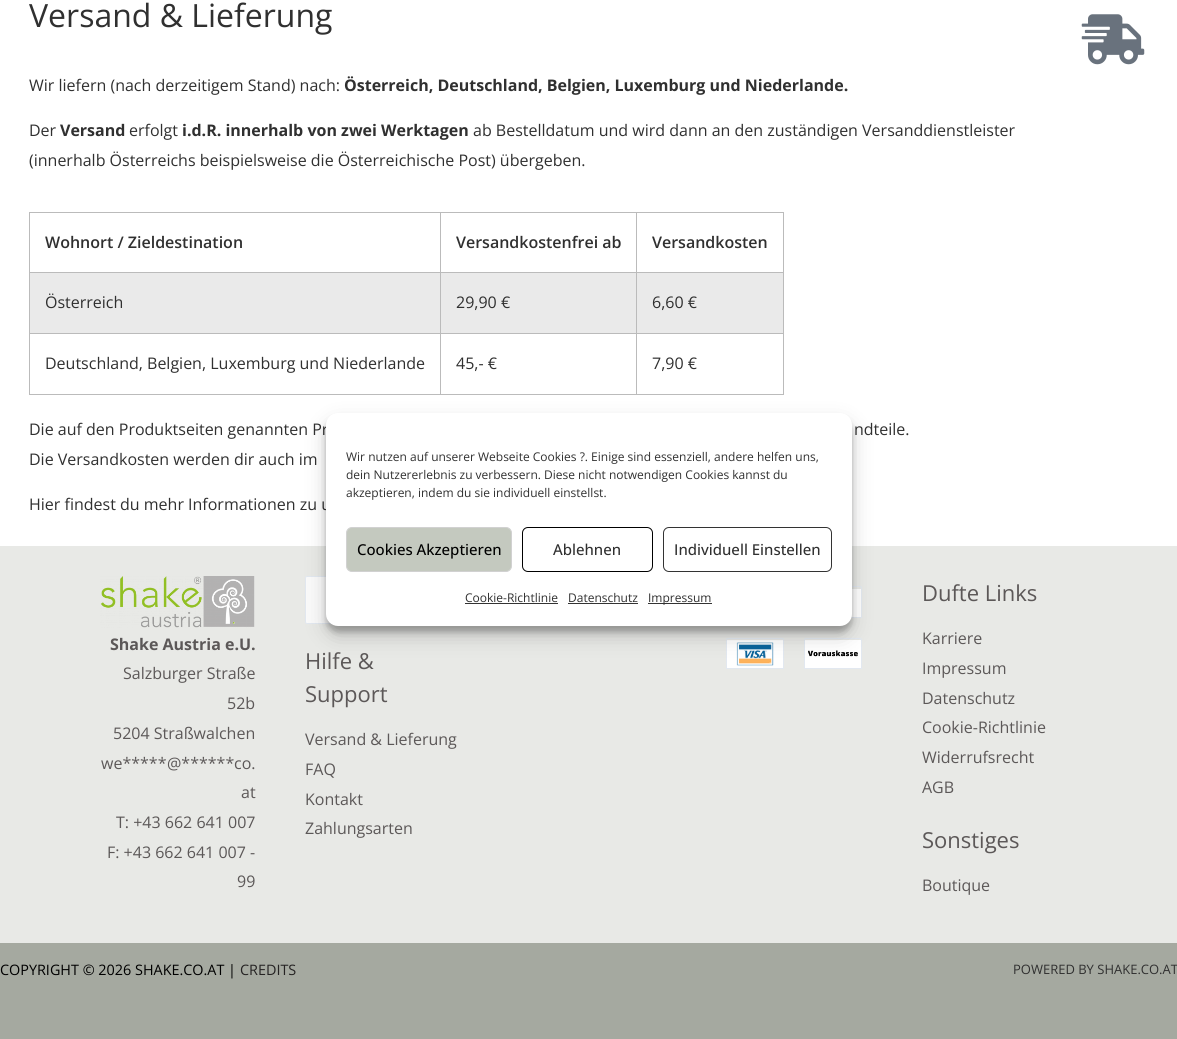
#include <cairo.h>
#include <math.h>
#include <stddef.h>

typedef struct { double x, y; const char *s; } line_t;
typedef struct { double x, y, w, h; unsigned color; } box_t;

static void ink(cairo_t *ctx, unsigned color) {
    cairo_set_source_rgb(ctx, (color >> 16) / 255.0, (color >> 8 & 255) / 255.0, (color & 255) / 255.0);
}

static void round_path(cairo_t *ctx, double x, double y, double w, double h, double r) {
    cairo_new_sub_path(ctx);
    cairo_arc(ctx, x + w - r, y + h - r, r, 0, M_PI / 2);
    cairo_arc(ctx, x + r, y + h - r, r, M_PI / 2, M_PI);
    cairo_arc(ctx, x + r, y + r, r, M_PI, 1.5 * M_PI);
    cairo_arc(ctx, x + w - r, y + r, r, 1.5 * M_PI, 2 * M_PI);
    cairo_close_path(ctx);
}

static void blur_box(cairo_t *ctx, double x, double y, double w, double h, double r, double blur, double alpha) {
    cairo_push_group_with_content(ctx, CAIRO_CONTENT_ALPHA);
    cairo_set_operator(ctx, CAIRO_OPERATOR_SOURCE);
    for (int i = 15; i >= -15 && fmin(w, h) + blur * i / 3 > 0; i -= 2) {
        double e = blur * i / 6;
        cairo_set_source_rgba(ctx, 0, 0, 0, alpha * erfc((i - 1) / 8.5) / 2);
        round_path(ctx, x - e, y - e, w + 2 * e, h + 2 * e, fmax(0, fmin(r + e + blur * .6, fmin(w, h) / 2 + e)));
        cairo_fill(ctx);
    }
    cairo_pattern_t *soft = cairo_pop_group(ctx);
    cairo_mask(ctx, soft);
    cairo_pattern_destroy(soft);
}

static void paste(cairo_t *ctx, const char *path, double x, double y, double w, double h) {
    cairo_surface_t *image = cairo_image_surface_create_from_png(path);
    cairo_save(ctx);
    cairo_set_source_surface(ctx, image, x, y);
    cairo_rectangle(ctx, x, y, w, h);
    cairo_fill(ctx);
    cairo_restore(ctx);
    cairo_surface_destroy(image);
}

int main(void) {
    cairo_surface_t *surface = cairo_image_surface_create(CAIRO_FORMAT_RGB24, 1177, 1039);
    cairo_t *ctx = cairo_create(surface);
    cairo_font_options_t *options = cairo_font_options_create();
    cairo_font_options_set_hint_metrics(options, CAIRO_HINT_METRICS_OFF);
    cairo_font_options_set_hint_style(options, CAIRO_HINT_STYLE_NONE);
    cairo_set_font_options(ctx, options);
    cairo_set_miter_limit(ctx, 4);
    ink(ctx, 0xFFFFFF);
    cairo_paint(ctx);
    cairo_select_font_face(ctx, "Open Sans", CAIRO_FONT_SLANT_NORMAL, CAIRO_FONT_WEIGHT_NORMAL);
    cairo_set_font_size(ctx, 32);
    ink(ctx, 0x303030);
    cairo_move_to(ctx, 29, 27);
    cairo_show_text(ctx, "Versand & Lieferung");
    cairo_set_font_size(ctx, 16);
    cairo_move_to(ctx, 29, 91);
    cairo_show_text(ctx, "Wir liefern (nach derzeitigem Stand) nach:");
    cairo_select_font_face(ctx, "Open Sans", CAIRO_FONT_SLANT_NORMAL, CAIRO_FONT_WEIGHT_BOLD);
    cairo_move_to(ctx, 344, 91);
    cairo_show_text(ctx, "Österreich, Deutschland, Belgien, Luxemburg und Niederlande.");
    cairo_select_font_face(ctx, "Open Sans", CAIRO_FONT_SLANT_NORMAL, CAIRO_FONT_WEIGHT_NORMAL);
    cairo_move_to(ctx, 29, 136);
    cairo_show_text(ctx, "Der");
    cairo_select_font_face(ctx, "Open Sans", CAIRO_FONT_SLANT_NORMAL, CAIRO_FONT_WEIGHT_BOLD);
    cairo_move_to(ctx, 60, 136);
    cairo_show_text(ctx, "Versand");
    cairo_select_font_face(ctx, "Open Sans", CAIRO_FONT_SLANT_NORMAL, CAIRO_FONT_WEIGHT_NORMAL);
    cairo_move_to(ctx, 129, 136);
    cairo_show_text(ctx, "erfolgt");
    cairo_select_font_face(ctx, "Open Sans", CAIRO_FONT_SLANT_NORMAL, CAIRO_FONT_WEIGHT_BOLD);
    cairo_move_to(ctx, 182, 136);
    cairo_show_text(ctx, "i.d.R. innerhalb von zwei Werktagen");
    cairo_select_font_face(ctx, "Open Sans", CAIRO_FONT_SLANT_NORMAL, CAIRO_FONT_WEIGHT_NORMAL);
    cairo_move_to(ctx, 473, 136);
    cairo_show_text(ctx, "ab Bestelldatum und wird dann an den zuständigen Versanddienstleister");
    cairo_move_to(ctx, 29, 166);
    cairo_show_text(ctx, "(innerhalb Österreichs beispielsweise die Österreichische Post) übergeben.");
    paste(ctx, "media/1.png", 1081, 14, 64, 51);
    {
        static const box_t items[] = {
            {636, 212, 148, 1, 0xBBBBBB},
            {636, 272, 148, 1, 0xBBBBBB},
            {30, 273, 753, 60, 0xEAEAEA},
            {636, 333, 148, 1, 0xBBBBBB},
            {783, 333, 1, 62, 0xBBBBBB},
            {636, 394, 148, 1, 0xBBBBBB},
            {636, 333, 1, 62, 0xBBBBBB},
            {440, 333, 197, 1, 0xBBBBBB},
            {636, 272, 1, 62, 0xBBBBBB},
            {440, 272, 197, 1, 0xBBBBBB},
            {636, 212, 1, 61, 0xBBBBBB},
            {440, 212, 197, 1, 0xBBBBBB},
            {440, 394, 197, 1, 0xBBBBBB},
            {440, 333, 1, 62, 0xBBBBBB},
            {29, 333, 412, 1, 0xBBBBBB},
            {440, 272, 1, 62, 0xBBBBBB},
            {29, 272, 412, 1, 0xBBBBBB},
            {440, 212, 1, 61, 0xBBBBBB},
            {29, 212, 412, 1, 0xBBBBBB},
            {29, 394, 412, 1, 0xBBBBBB},
            {29, 333, 1, 62, 0xBBBBBB},
            {29, 272, 1, 62, 0xBBBBBB},
            {29, 212, 1, 61, 0xBBBBBB},
        };
        for (size_t i = 0; i < sizeof items / sizeof *items; i++) {
            ink(ctx, items[i].color);
            cairo_rectangle(ctx, items[i].x, items[i].y, items[i].w, items[i].h);
            cairo_fill(ctx);
        }
    }
    cairo_select_font_face(ctx, "Open Sans SemiBold", CAIRO_FONT_SLANT_NORMAL, CAIRO_FONT_WEIGHT_NORMAL);
    ink(ctx, 0x303030);
    cairo_move_to(ctx, 45, 248);
    cairo_show_text(ctx, "Wohnort / Zieldestination");
    cairo_move_to(ctx, 456, 248);
    cairo_show_text(ctx, "Versandkostenfrei ab");
    ink(ctx, 0xBBBBBB);
    cairo_rectangle(ctx, 783, 272, 1, 62);
    cairo_fill(ctx);
    cairo_rectangle(ctx, 783, 212, 1, 61);
    cairo_fill(ctx);
    ink(ctx, 0x303030);
    cairo_move_to(ctx, 652, 248);
    cairo_show_text(ctx, "Versandkosten");
    cairo_select_font_face(ctx, "Open Sans", CAIRO_FONT_SLANT_NORMAL, CAIRO_FONT_WEIGHT_NORMAL);
    {
        static const line_t items[] = {
            {45, 308, "Österreich"},
            {456, 308, "29,90 €"},
            {652, 308, "6,60 €"},
            {45, 369, "Deutschland, Belgien, Luxemburg und Niederlande"},
            {456, 369, "45,- €"},
            {652, 369, "7,90 €"},
            {29, 435, "Die auf den Produktseiten genannten Pr"},
            {854, 435, "ndteile."},
            {29, 465, "Die Versandkosten werden dir auch im"},
            {29, 510, "Hier findest du mehr Informationen zu u"},
        };
        for (size_t i = 0; i < sizeof items / sizeof *items; i++) {
            cairo_move_to(ctx, items[i].x, items[i].y);
            cairo_show_text(ctx, items[i].s);
        }
    }
    ink(ctx, 0xE8E9E6);
    cairo_rectangle(ctx, 0, 546, 1177, 397);
    cairo_fill(ctx);
    cairo_new_path(ctx);
    cairo_move_to(ctx, 806, 586.5);
    cairo_line_to(ctx, 860, 586.5);
    cairo_curve_to(ctx, 861, 586.5, 861.5, 587, 861.5, 588);
    cairo_line_to(ctx, 861.5, 617.5);
    cairo_line_to(ctx, 804.5, 617.5);
    cairo_line_to(ctx, 804.5, 588);
    cairo_curve_to(ctx, 804.5, 587, 805, 586.5, 806, 586.5);
    cairo_close_path(ctx);
    ink(ctx, 0xE2E8F0);
    cairo_set_line_width(ctx, 1);
    cairo_stroke(ctx);
    paste(ctx, "media/2.png", 851, 589, 10, 28);
    cairo_new_path(ctx);
    cairo_move_to(ctx, 728, 638.5);
    cairo_line_to(ctx, 782, 638.5);
    cairo_curve_to(ctx, 783, 638.5, 783.5, 639, 783.5, 640);
    cairo_line_to(ctx, 783.5, 668.5);
    cairo_line_to(ctx, 726.5, 668.5);
    cairo_line_to(ctx, 726.5, 640);
    cairo_curve_to(ctx, 726.5, 639, 727, 638.5, 728, 638.5);
    cairo_close_path(ctx);
    cairo_stroke(ctx);
    paste(ctx, "media/3.png", 727, 640, 56, 28);
    cairo_new_path(ctx);
    cairo_move_to(ctx, 806, 638.5);
    cairo_line_to(ctx, 860, 638.5);
    cairo_curve_to(ctx, 861, 638.5, 861.5, 639, 861.5, 640);
    cairo_line_to(ctx, 861.5, 668.5);
    cairo_line_to(ctx, 804.5, 668.5);
    cairo_line_to(ctx, 804.5, 640);
    cairo_curve_to(ctx, 804.5, 639, 805, 638.5, 806, 638.5);
    cairo_close_path(ctx);
    cairo_stroke(ctx);
    paste(ctx, "media/4.png", 805, 640, 56, 28);
    cairo_set_font_size(ctx, 22);
    ink(ctx, 0x5C5858);
    cairo_move_to(ctx, 922, 601);
    cairo_show_text(ctx, "Dufte Links");
    cairo_set_font_size(ctx, 16);
    {
        static const line_t items[] = {
            {922, 644, "Karriere"},
            {922, 674, "Impressum"},
            {922, 704, "Datenschutz"},
            {922, 733, "Cookie-Richtlinie"},
            {922, 763, "Widerrufsrecht"},
            {922, 793, "AGB"},
        };
        for (size_t i = 0; i < sizeof items / sizeof *items; i++) {
            cairo_move_to(ctx, items[i].x, items[i].y);
            cairo_show_text(ctx, items[i].s);
        }
    }
    cairo_set_font_size(ctx, 22);
    cairo_move_to(ctx, 922, 848);
    cairo_show_text(ctx, "Sonstiges");
    cairo_set_font_size(ctx, 16);
    cairo_move_to(ctx, 922, 891);
    cairo_show_text(ctx, "Boutique");
    paste(ctx, "media/5.png", 100, 576, 155, 52);
    cairo_select_font_face(ctx, "Open Sans", CAIRO_FONT_SLANT_NORMAL, CAIRO_FONT_WEIGHT_BOLD);
    cairo_move_to(ctx, 110, 650);
    cairo_show_text(ctx, "Shake Austria e.U.");
    cairo_select_font_face(ctx, "Open Sans", CAIRO_FONT_SLANT_NORMAL, CAIRO_FONT_WEIGHT_NORMAL);
    {
        static const line_t items[] = {
            {123, 679, "Salzburger Straße"},
            {227, 709, "52b"},
            {113, 739, "5204 Straßwalchen"},
            {101, 769, "we*****"},
            {167, 769, "@******"},
            {234, 769, "co."},
            {241, 798, "at"},
            {116, 828, "T: +43 662 641 007"},
            {107, 858, "F: +43 662 641 007 -"},
            {237, 887, "99"},
        };
        for (size_t i = 0; i < sizeof items / sizeof *items; i++) {
            cairo_move_to(ctx, items[i].x, items[i].y);
            cairo_show_text(ctx, items[i].s);
        }
    }
    ink(ctx, 0xFAFAFA);
    round_path(ctx, 305.5, 576.5, 155, 47, 1.5);
    cairo_fill_preserve(ctx);
    ink(ctx, 0xE2E8F0);
    cairo_stroke(ctx);
    cairo_set_font_size(ctx, 22);
    ink(ctx, 0x5C5858);
    cairo_move_to(ctx, 305, 669);
    cairo_show_text(ctx, "Hilfe &");
    cairo_move_to(ctx, 305, 702);
    cairo_show_text(ctx, "Support");
    cairo_set_font_size(ctx, 16);
    {
        static const line_t items[] = {
            {305, 745, "Versand & Lieferung"},
            {305, 775, "FAQ"},
            {305, 805, "Kontakt"},
            {305, 834, "Zahlungsarten"},
        };
        for (size_t i = 0; i < sizeof items / sizeof *items; i++) {
            cairo_move_to(ctx, items[i].x, items[i].y);
            cairo_show_text(ctx, items[i].s);
        }
    }
    ink(ctx, 0xA5A9A0);
    cairo_rectangle(ctx, 0, 943, 1177, 96);
    cairo_fill(ctx);
    cairo_set_font_size(ctx, 14.4);
    ink(ctx, 0x000000);
    cairo_move_to(ctx, 0, 975);
    cairo_show_text(ctx, "COPYRIGHT © 2026 SHAKE.CO.AT |");
    ink(ctx, 0x252323);
    cairo_move_to(ctx, 240, 975);
    cairo_show_text(ctx, "CREDITS");
    cairo_set_font_size(ctx, 13);
    ink(ctx, 0x303030);
    cairo_move_to(ctx, 1013, 974);
    cairo_show_text(ctx, "POWERED BY SHAKE.CO.AT");
    ink(ctx, 0x000000);
    blur_box(ctx, 326, 419, 526, 213, 12, 3, 0.23);
    blur_box(ctx, 326, 423, 526, 213, 12, 10, 0.19);
    ink(ctx, 0xFFFFFF);
    round_path(ctx, 326, 413, 526, 213, 12);
    cairo_fill(ctx);
    cairo_set_font_size(ctx, 12);
    ink(ctx, 0x303030);
    {
        static const line_t items[] = {
            {346, 461, "Wir nutzen auf unserer Webseite Cookies ?. Einige sind essenziell, andere helfen uns,"},
            {346, 479, "dein Nutzererlebnis zu verbessern. Diese nicht notwendigen Cookies kannst du"},
            {346, 497, "akzeptieren, indem du sie individuell einstellst."},
        };
        for (size_t i = 0; i < sizeof items / sizeof *items; i++) {
            cairo_move_to(ctx, items[i].x, items[i].y);
            cairo_show_text(ctx, items[i].s);
        }
    }
    ink(ctx, 0xC4C9BF);
    round_path(ctx, 346.5, 527.5, 165, 44, 5.5);
    cairo_fill_preserve(ctx);
    ink(ctx, 0xD1D1D1);
    cairo_stroke(ctx);
    cairo_select_font_face(ctx, "Open Sans Medium", CAIRO_FONT_SLANT_NORMAL, CAIRO_FONT_WEIGHT_NORMAL);
    cairo_set_font_size(ctx, 15);
    ink(ctx, 0x000000);
    cairo_move_to(ctx, 357, 555);
    cairo_show_text(ctx, "Cookies Akzeptieren");
    round_path(ctx, 522.5, 527.5, 130, 44, 5.5);
    cairo_stroke(ctx);
    ink(ctx, 0x303030);
    cairo_move_to(ctx, 553, 555);
    cairo_show_text(ctx, "Ablehnen");
    round_path(ctx, 663.5, 527.5, 168, 44, 5.5);
    ink(ctx, 0x333333);
    cairo_stroke(ctx);
    ink(ctx, 0x303030);
    cairo_move_to(ctx, 674, 555);
    cairo_show_text(ctx, "Individuell Einstellen");
    cairo_select_font_face(ctx, "Open Sans", CAIRO_FONT_SLANT_NORMAL, CAIRO_FONT_WEIGHT_NORMAL);
    cairo_set_font_size(ctx, 12);
    cairo_move_to(ctx, 465, 602);
    cairo_show_text(ctx, "Cookie-Richtlinie");
    ink(ctx, 0x333333);
    cairo_rectangle(ctx, 465, 603, 93, 1);
    cairo_fill(ctx);
    ink(ctx, 0x303030);
    cairo_move_to(ctx, 568, 602);
    cairo_show_text(ctx, "Datenschutz");
    ink(ctx, 0x333333);
    cairo_rectangle(ctx, 568, 603, 70, 1);
    cairo_fill(ctx);
    cairo_rectangle(ctx, 648, 603, 64, 1);
    cairo_fill(ctx);
    ink(ctx, 0x303030);
    cairo_move_to(ctx, 648, 602);
    cairo_show_text(ctx, "Impressum");
    cairo_surface_write_to_png(surface, "image.png");
    cairo_font_options_destroy(options);
    cairo_destroy(ctx);
    cairo_surface_destroy(surface);
    return 0;
}
